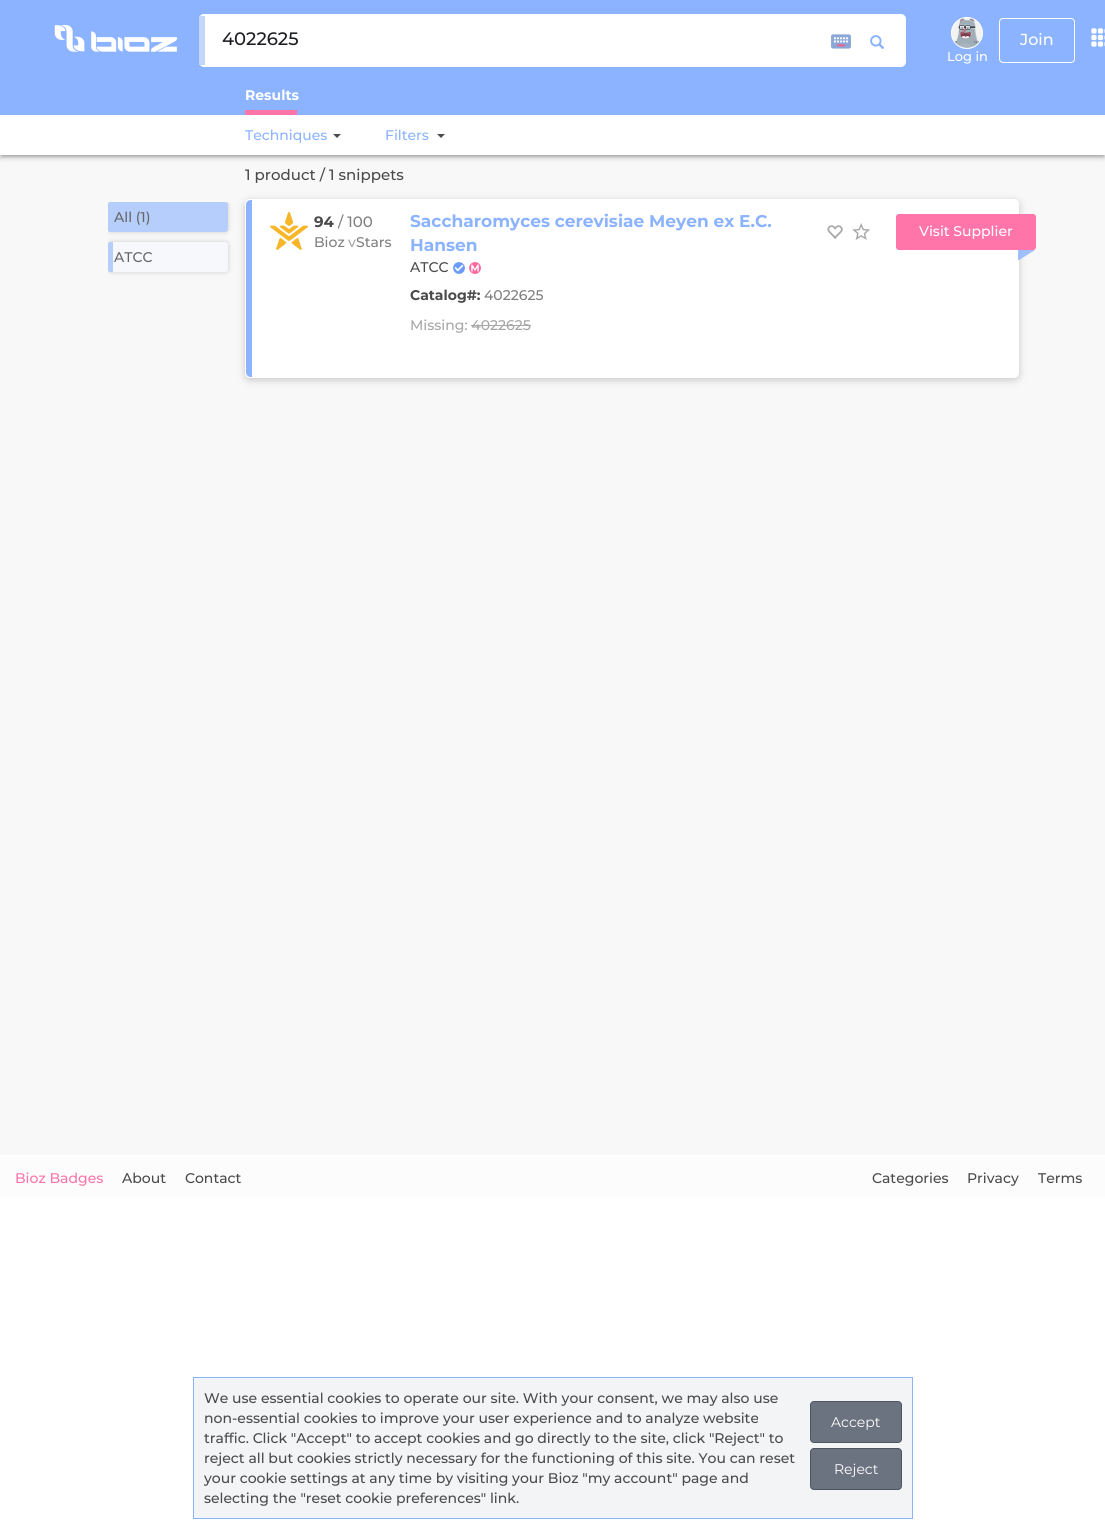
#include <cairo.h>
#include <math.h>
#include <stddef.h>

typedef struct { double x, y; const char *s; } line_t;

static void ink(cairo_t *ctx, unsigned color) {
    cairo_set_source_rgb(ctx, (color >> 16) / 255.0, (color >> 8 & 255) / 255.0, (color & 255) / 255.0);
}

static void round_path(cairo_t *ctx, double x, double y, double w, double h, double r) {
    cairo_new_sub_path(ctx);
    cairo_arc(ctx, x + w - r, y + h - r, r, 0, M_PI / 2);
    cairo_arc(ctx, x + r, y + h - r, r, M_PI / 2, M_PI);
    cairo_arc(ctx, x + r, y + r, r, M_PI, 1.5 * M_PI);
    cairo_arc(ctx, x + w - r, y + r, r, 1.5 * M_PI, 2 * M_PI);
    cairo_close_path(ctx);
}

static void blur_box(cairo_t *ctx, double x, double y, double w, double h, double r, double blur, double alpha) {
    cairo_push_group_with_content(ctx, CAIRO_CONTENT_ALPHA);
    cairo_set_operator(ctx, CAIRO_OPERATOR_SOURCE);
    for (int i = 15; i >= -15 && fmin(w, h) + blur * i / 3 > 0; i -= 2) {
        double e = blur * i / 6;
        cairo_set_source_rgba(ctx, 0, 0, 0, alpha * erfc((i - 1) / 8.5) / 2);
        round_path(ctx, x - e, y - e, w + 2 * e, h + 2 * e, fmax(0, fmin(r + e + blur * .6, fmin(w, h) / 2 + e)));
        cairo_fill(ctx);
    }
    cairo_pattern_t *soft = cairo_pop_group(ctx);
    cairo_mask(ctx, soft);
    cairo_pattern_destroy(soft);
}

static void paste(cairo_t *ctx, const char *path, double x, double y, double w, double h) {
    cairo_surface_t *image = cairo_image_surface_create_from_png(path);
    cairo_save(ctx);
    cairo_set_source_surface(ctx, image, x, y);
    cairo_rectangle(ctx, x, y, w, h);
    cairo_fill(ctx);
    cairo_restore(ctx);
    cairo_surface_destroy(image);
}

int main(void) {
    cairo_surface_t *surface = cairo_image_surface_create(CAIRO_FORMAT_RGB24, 1105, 1539);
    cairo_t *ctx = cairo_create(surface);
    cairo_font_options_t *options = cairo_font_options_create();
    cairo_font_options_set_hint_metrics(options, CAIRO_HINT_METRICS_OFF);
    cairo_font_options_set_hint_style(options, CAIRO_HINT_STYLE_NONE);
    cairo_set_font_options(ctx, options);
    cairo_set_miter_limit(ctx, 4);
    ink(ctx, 0xFFFFFF);
    cairo_paint(ctx);
    ink(ctx, 0xF8F8F8);
    cairo_rectangle(ctx, 0, 155, 1105, 1000);
    cairo_fill(ctx);
    ink(ctx, 0x000000);
    blur_box(ctx, 0, 1, 1105, 155, 0, 4, 0.12);
    blur_box(ctx, 2, 5, 1101, 151, 0, 1.5, 0.2);
    blur_box(ctx, 0, 3, 1105, 155, 0, 2, 0.14);
    ink(ctx, 0x8BB3FF);
    cairo_rectangle(ctx, 0, 0, 1105, 115);
    cairo_fill(ctx);
    paste(ctx, "media/1.png", 54, 25, 124, 27);
    ink(ctx, 0xFFFFFF);
    round_path(ctx, 199, 14, 707, 53, 5);
    cairo_fill(ctx);
    ink(ctx, 0xC4D7FA);
    cairo_rectangle(ctx, 199, 16, 6, 49);
    cairo_fill(ctx);
    cairo_select_font_face(ctx, "Montserrat Medium", CAIRO_FONT_SLANT_NORMAL, CAIRO_FONT_WEIGHT_NORMAL);
    cairo_set_font_size(ctx, 18);
    ink(ctx, 0x1D1E22);
    cairo_move_to(ctx, 222, 45);
    cairo_show_text(ctx, "4022625");
    paste(ctx, "media/2.png", 831, 34, 20, 15);
    paste(ctx, "media/3.png", 870, 35, 14, 14);
    round_path(ctx, 999.5, 18.5, 75, 44, 3.5);
    ink(ctx, 0xFFFFFF);
    cairo_set_line_width(ctx, 1);
    cairo_stroke(ctx);
    cairo_set_font_size(ctx, 16);
    cairo_move_to(ctx, 1020, 45);
    cairo_show_text(ctx, "Join");
    ink(ctx, 0xF2F2F2);
    cairo_new_path(ctx);
    cairo_arc(ctx, 967, 33, 15.5, 0, 2 * M_PI);
    cairo_fill_preserve(ctx);
    ink(ctx, 0xFFFFFF);
    cairo_stroke(ctx);
    paste(ctx, "media/4.png", 954, 18, 26, 30);
    cairo_set_font_size(ctx, 13);
    cairo_move_to(ctx, 947, 61);
    cairo_show_text(ctx, "Log in");
    paste(ctx, "media/5.png", 1091, 28, 14, 19);
    cairo_select_font_face(ctx, "Montserrat", CAIRO_FONT_SLANT_NORMAL, CAIRO_FONT_WEIGHT_BOLD);
    cairo_set_font_size(ctx, 14);
    cairo_move_to(ctx, 245, 100);
    cairo_show_text(ctx, "Results");
    ink(ctx, 0xFF74A9);
    cairo_rectangle(ctx, 245, 110, 52, 5);
    cairo_fill(ctx);
    ink(ctx, 0xFFFFFF);
    cairo_rectangle(ctx, 0, 115, 1105, 40);
    cairo_fill(ctx);
    cairo_select_font_face(ctx, "Montserrat Medium", CAIRO_FONT_SLANT_NORMAL, CAIRO_FONT_WEIGHT_NORMAL);
    ink(ctx, 0x8BB3FF);
    cairo_move_to(ctx, 245, 140);
    cairo_show_text(ctx, "Techniques");
    ink(ctx, 0x4A4A4A);
    cairo_new_path(ctx);
    cairo_move_to(ctx, 333, 134);
    cairo_line_to(ctx, 341, 134);
    cairo_line_to(ctx, 337, 138);
    cairo_close_path(ctx);
    cairo_fill(ctx);
    ink(ctx, 0x8BB3FF);
    cairo_move_to(ctx, 385, 140);
    cairo_show_text(ctx, "Filters");
    ink(ctx, 0x4A4A4A);
    cairo_new_path(ctx);
    cairo_move_to(ctx, 437, 134);
    cairo_line_to(ctx, 445, 134);
    cairo_line_to(ctx, 441, 138);
    cairo_close_path(ctx);
    cairo_fill(ctx);
    cairo_save(ctx);
    cairo_rectangle(ctx, 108, 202, 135, 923);
    cairo_clip(ctx);
    ink(ctx, 0xCCCCCC);
    blur_box(ctx, 108, 202, 120, 30, 3, 2.5, 1);
    cairo_restore(ctx);
    ink(ctx, 0xB6CEFB);
    round_path(ctx, 108, 202, 120, 30, 3);
    cairo_fill(ctx);
    cairo_new_path(ctx);
    cairo_move_to(ctx, 111, 202);
    cairo_line_to(ctx, 113, 202);
    cairo_line_to(ctx, 113, 232);
    cairo_line_to(ctx, 111, 232);
    cairo_curve_to(ctx, 109.5, 232, 108, 230.5, 108, 229);
    cairo_line_to(ctx, 108, 205);
    cairo_curve_to(ctx, 108, 203.5, 109.5, 202, 111, 202);
    cairo_close_path(ctx);
    cairo_fill(ctx);
    round_path(ctx, 108, 202, 5, 30, 2.5);
    cairo_fill(ctx);
    ink(ctx, 0x666666);
    cairo_move_to(ctx, 114, 222);
    cairo_show_text(ctx, "All (1)");
    cairo_save(ctx);
    cairo_rectangle(ctx, 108, 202, 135, 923);
    cairo_clip(ctx);
    ink(ctx, 0xCCCCCC);
    blur_box(ctx, 108, 242, 120, 30, 3, 2.5, 1);
    cairo_restore(ctx);
    ink(ctx, 0xF6F8FC);
    round_path(ctx, 108, 242, 120, 30, 3);
    cairo_fill(ctx);
    ink(ctx, 0xB6CEFB);
    cairo_new_path(ctx);
    cairo_move_to(ctx, 111, 242);
    cairo_line_to(ctx, 113, 242);
    cairo_line_to(ctx, 113, 272);
    cairo_line_to(ctx, 111, 272);
    cairo_curve_to(ctx, 109.5, 272, 108, 270.5, 108, 269);
    cairo_line_to(ctx, 108, 245);
    cairo_curve_to(ctx, 108, 243.5, 109.5, 242, 111, 242);
    cairo_close_path(ctx);
    cairo_fill(ctx);
    round_path(ctx, 108, 242, 5, 30, 2.5);
    cairo_fill(ctx);
    ink(ctx, 0x666666);
    cairo_move_to(ctx, 114, 262);
    cairo_show_text(ctx, "ATCC");
    cairo_set_font_size(ctx, 15);
    ink(ctx, 0x4A4A4A);
    cairo_move_to(ctx, 245, 180);
    cairo_show_text(ctx, "1 product / 1 snippets");
    ink(ctx, 0x000000);
    blur_box(ctx, 245, 201, 774, 179, 5, 4, 0.2);
    ink(ctx, 0xFFFFFF);
    round_path(ctx, 245.5, 199.5, 773, 178, 4.5);
    cairo_fill_preserve(ctx);
    cairo_stroke(ctx);
    ink(ctx, 0x8BB3FF);
    cairo_new_path(ctx);
    cairo_move_to(ctx, 251, 200);
    cairo_line_to(ctx, 252, 200);
    cairo_line_to(ctx, 252, 377);
    cairo_line_to(ctx, 251, 377);
    cairo_curve_to(ctx, 248, 377, 246, 375, 246, 372);
    cairo_line_to(ctx, 246, 205);
    cairo_curve_to(ctx, 246, 202, 248, 200, 251, 200);
    cairo_close_path(ctx);
    cairo_fill(ctx);
    paste(ctx, "media/6.png", 270, 212, 38, 38);
    cairo_select_font_face(ctx, "Montserrat", CAIRO_FONT_SLANT_NORMAL, CAIRO_FONT_WEIGHT_BOLD);
    ink(ctx, 0x4A4A4A);
    cairo_move_to(ctx, 314, 227);
    cairo_show_text(ctx, "94");
    cairo_select_font_face(ctx, "Montserrat Medium", CAIRO_FONT_SLANT_NORMAL, CAIRO_FONT_WEIGHT_NORMAL);
    ink(ctx, 0x808080);
    cairo_move_to(ctx, 338, 227);
    cairo_show_text(ctx, "/ 100");
    cairo_set_font_size(ctx, 14);
    cairo_move_to(ctx, 314, 247);
    cairo_show_text(ctx, "Bioz");
    cairo_move_to(ctx, 356, 247);
    cairo_show_text(ctx, "Stars");
    ink(ctx, 0xA6A6A6);
    cairo_move_to(ctx, 348, 247);
    cairo_show_text(ctx, "v");
    cairo_select_font_face(ctx, "Montserrat", CAIRO_FONT_SLANT_NORMAL, CAIRO_FONT_WEIGHT_BOLD);
    cairo_set_font_size(ctx, 17);
    ink(ctx, 0x8BB3FF);
    cairo_move_to(ctx, 410, 227);
    cairo_show_text(ctx, "Saccharomyces cerevisiae Meyen ex E.C.");
    cairo_move_to(ctx, 410, 251);
    cairo_show_text(ctx, "Hansen");
    cairo_select_font_face(ctx, "Montserrat Medium", CAIRO_FONT_SLANT_NORMAL, CAIRO_FONT_WEIGHT_NORMAL);
    cairo_set_font_size(ctx, 14);
    ink(ctx, 0x4A4A4A);
    cairo_move_to(ctx, 410, 272);
    cairo_show_text(ctx, "ATCC");
    paste(ctx, "media/7.png", 453, 262, 12, 12);
    paste(ctx, "media/8.png", 469, 262, 12, 12);
    paste(ctx, "media/9.png", 827, 225, 16, 15);
    paste(ctx, "media/10.png", 852, 223, 18, 17);
    ink(ctx, 0xFF74A9);
    round_path(ctx, 896.5, 214.5, 139, 35, 2.5);
    cairo_fill_preserve(ctx);
    cairo_stroke(ctx);
    ink(ctx, 0xFFFFFF);
    cairo_move_to(ctx, 919, 236);
    cairo_show_text(ctx, "Visit Supplier");
    cairo_set_source_rgba(ctx, 0.545, 0.702, 1, 0.8);
    cairo_new_path(ctx);
    cairo_move_to(ctx, 1018, 250);
    cairo_line_to(ctx, 1035, 250);
    cairo_line_to(ctx, 1019, 260);
    cairo_line_to(ctx, 1018, 260);
    cairo_close_path(ctx);
    cairo_fill(ctx);
    cairo_select_font_face(ctx, "Montserrat", CAIRO_FONT_SLANT_NORMAL, CAIRO_FONT_WEIGHT_BOLD);
    ink(ctx, 0x4A4A4A);
    cairo_move_to(ctx, 410, 300);
    cairo_show_text(ctx, "Catalog#:");
    cairo_select_font_face(ctx, "Montserrat Medium", CAIRO_FONT_SLANT_NORMAL, CAIRO_FONT_WEIGHT_NORMAL);
    ink(ctx, 0x808080);
    cairo_move_to(ctx, 484, 300);
    cairo_show_text(ctx, "4022625");
    ink(ctx, 0xA6A6A6);
    cairo_move_to(ctx, 410, 330);
    cairo_show_text(ctx, "Missing: 4022625");
    ink(ctx, 0xA8A8A8);
    cairo_rectangle(ctx, 471, 325, 60, 1);
    cairo_fill(ctx);
    ink(ctx, 0xFCFCFC);
    cairo_rectangle(ctx, 0, 1157, 1105, 41);
    cairo_fill(ctx);
    ink(ctx, 0xFF74A9);
    cairo_move_to(ctx, 15, 1183);
    cairo_show_text(ctx, "Bioz Badges");
    ink(ctx, 0x4A4A4A);
    {
        static const line_t items[] = {
            {122, 1183, "About"},
            {185, 1183, "Contact"},
            {872, 1183, "Categories"},
            {967, 1183, "Privacy"},
            {1038, 1183, "Terms"},
        };
        for (size_t i = 0; i < sizeof items / sizeof *items; i++) {
            cairo_move_to(ctx, items[i].x, items[i].y);
            cairo_show_text(ctx, items[i].s);
        }
    }
    ink(ctx, 0xF3F4F6);
    cairo_rectangle(ctx, 193.5, 1377.5, 719, 141);
    cairo_fill_preserve(ctx);
    ink(ctx, 0x8BB3FF);
    cairo_stroke(ctx);
    ink(ctx, 0x4A4A4A);
    {
        static const line_t items[] = {
            {204, 1403, "We use essential cookies to operate our site. With your consent, we may also use"},
            {204, 1423, "non-essential cookies to improve your user experience and to analyze website"},
            {204, 1443, "traffic. Click \"Accept\" to accept cookies and go directly to the site, click \"Reject\" to"},
            {204, 1463, "reject all but cookies strictly necessary for the functioning of this site. You can reset"},
            {204, 1483, "your cookie settings at any time by visiting your Bioz \"my account\" page and"},
            {204, 1503, "selecting the \"reset cookie preferences\" link."},
        };
        for (size_t i = 0; i < sizeof items / sizeof *items; i++) {
            cairo_move_to(ctx, items[i].x, items[i].y);
            cairo_show_text(ctx, items[i].s);
        }
    }
    ink(ctx, 0x6B7280);
    round_path(ctx, 810.5, 1401.5, 91, 41, 3.5);
    cairo_fill_preserve(ctx);
    ink(ctx, 0x4B5563);
    cairo_stroke(ctx);
    cairo_select_font_face(ctx, "Montserrat", CAIRO_FONT_SLANT_NORMAL, CAIRO_FONT_WEIGHT_NORMAL);
    ink(ctx, 0xFFFFFF);
    cairo_move_to(ctx, 831, 1427);
    cairo_show_text(ctx, "Accept");
    ink(ctx, 0x6B7280);
    round_path(ctx, 810.5, 1448.5, 91, 41, 3.5);
    cairo_fill_preserve(ctx);
    ink(ctx, 0x4B5563);
    cairo_stroke(ctx);
    ink(ctx, 0xFFFFFF);
    cairo_move_to(ctx, 834, 1474);
    cairo_show_text(ctx, "Reject");
    cairo_surface_write_to_png(surface, "image.png");
    cairo_font_options_destroy(options);
    cairo_destroy(ctx);
    cairo_surface_destroy(surface);
    return 0;
}
